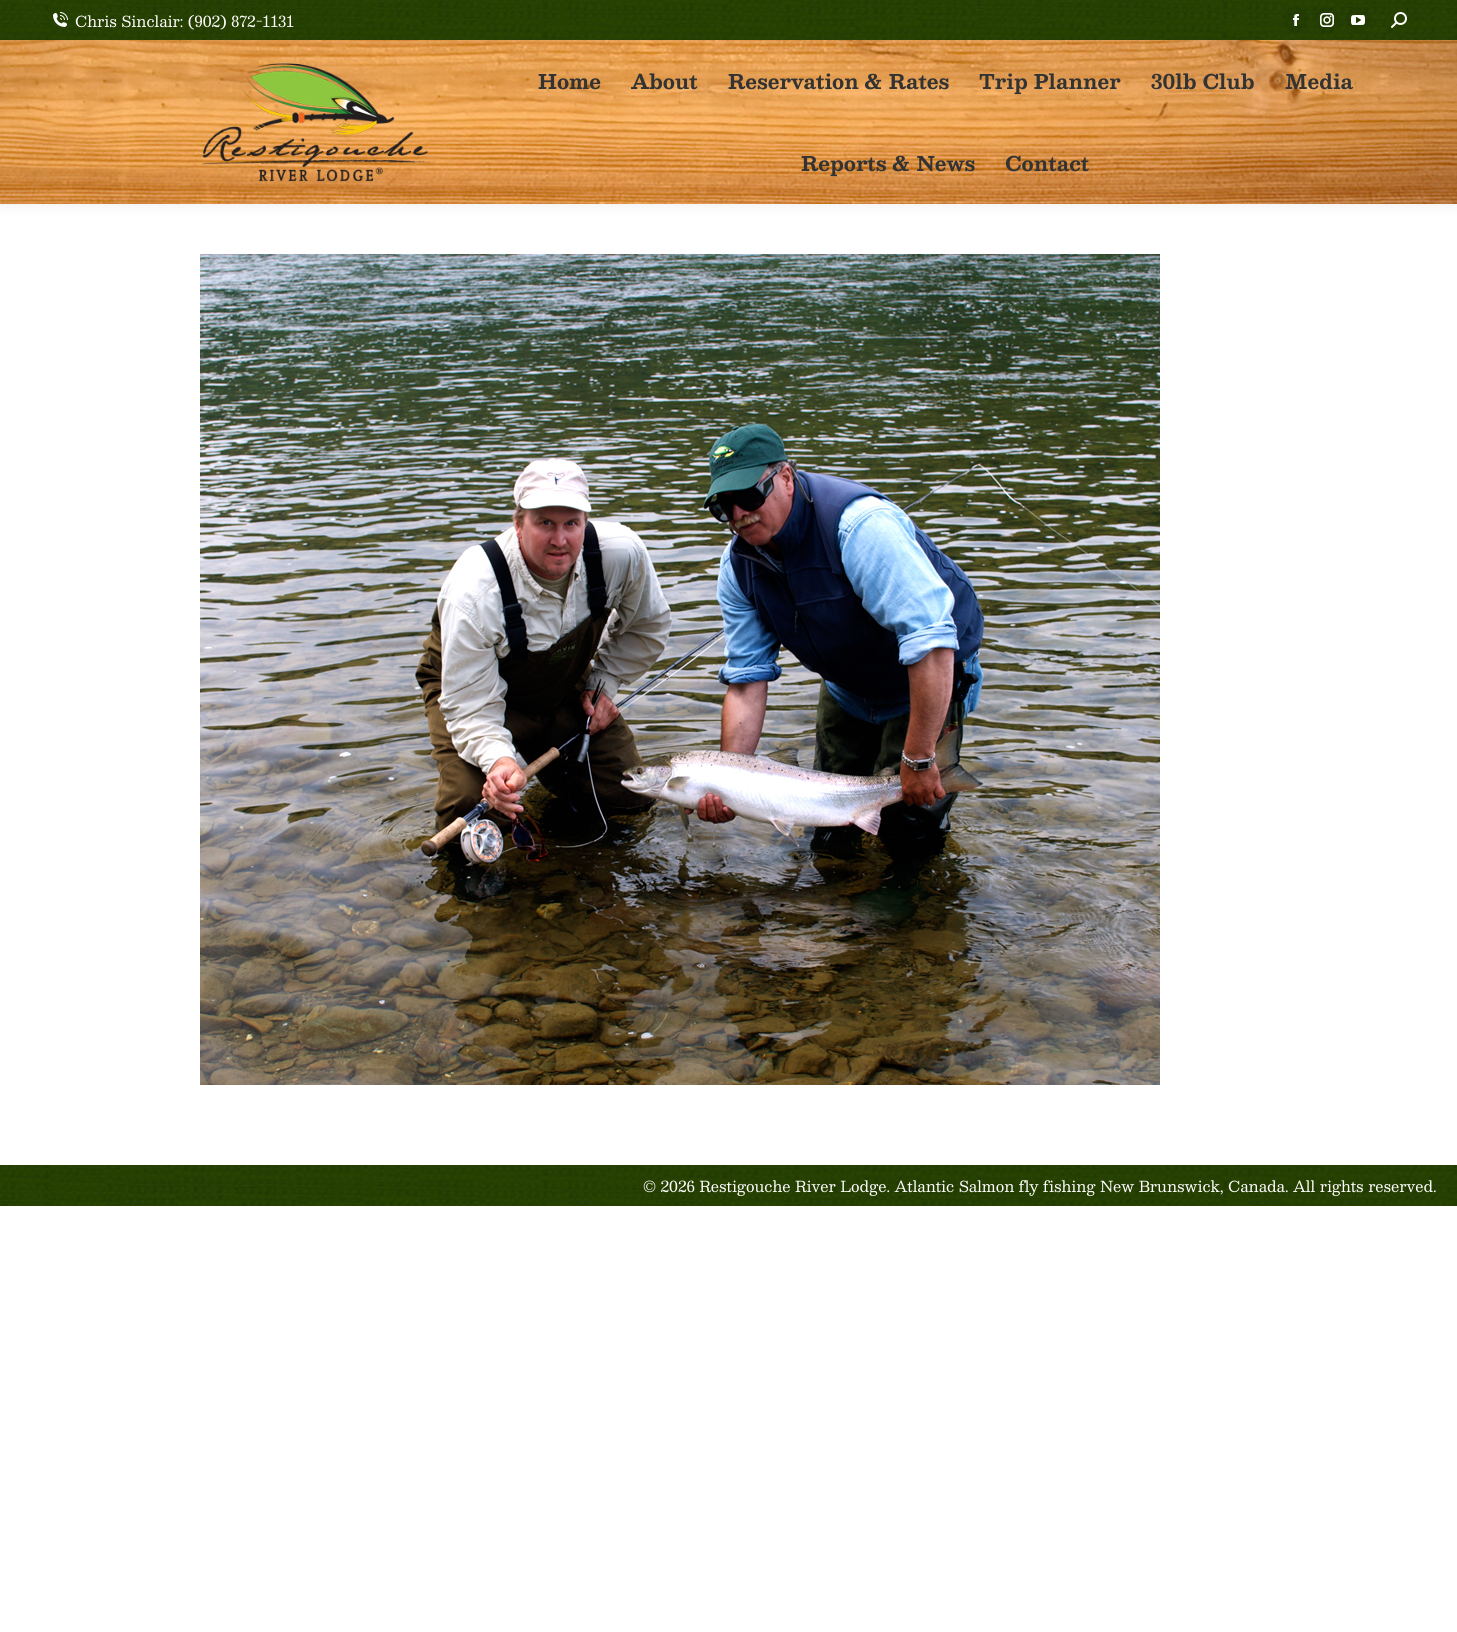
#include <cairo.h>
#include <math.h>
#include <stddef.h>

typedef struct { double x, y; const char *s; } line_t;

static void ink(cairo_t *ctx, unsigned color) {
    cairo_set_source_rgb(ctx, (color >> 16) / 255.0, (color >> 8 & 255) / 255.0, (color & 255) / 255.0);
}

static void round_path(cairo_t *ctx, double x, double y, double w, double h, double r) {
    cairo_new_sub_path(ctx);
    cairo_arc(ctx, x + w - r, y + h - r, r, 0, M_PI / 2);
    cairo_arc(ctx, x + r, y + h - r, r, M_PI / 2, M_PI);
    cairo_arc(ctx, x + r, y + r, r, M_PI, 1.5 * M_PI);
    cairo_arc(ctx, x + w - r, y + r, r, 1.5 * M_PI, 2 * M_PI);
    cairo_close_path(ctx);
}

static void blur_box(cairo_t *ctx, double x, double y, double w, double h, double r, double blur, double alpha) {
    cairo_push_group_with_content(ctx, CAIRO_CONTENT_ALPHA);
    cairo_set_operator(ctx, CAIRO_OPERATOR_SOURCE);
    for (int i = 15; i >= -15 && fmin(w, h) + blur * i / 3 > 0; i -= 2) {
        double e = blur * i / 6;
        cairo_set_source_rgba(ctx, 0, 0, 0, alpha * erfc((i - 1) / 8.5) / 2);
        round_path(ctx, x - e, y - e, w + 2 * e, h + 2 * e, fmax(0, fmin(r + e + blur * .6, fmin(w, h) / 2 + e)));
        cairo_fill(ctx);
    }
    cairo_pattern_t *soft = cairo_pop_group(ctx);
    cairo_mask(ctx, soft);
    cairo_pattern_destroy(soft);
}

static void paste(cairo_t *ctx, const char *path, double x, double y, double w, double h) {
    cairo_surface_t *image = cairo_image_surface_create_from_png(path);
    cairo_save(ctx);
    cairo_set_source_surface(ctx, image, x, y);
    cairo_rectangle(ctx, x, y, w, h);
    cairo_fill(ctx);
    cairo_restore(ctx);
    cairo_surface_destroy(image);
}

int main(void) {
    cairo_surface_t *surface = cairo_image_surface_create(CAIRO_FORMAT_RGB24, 1457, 1632);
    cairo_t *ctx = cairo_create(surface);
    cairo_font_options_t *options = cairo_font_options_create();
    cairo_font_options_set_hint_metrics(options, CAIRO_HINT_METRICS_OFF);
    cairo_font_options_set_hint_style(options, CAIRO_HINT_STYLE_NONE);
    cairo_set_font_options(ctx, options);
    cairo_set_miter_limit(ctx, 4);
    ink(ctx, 0xFFFFFF);
    cairo_paint(ctx);
    ink(ctx, 0x000000);
    blur_box(ctx, -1, -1, 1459, 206, 0, 7.5, 0.07);
    paste(ctx, "media/1.png", 0, 40, 1457, 164);
    paste(ctx, "media/2.png", 0, 0, 1457, 40);
    paste(ctx, "media/3.png", 53, 12, 15, 15);
    cairo_select_font_face(ctx, "Besley", CAIRO_FONT_SLANT_NORMAL, CAIRO_FONT_WEIGHT_NORMAL);
    cairo_set_font_size(ctx, 15);
    ink(ctx, 0xFFFFFF);
    cairo_move_to(ctx, 75, 27);
    cairo_show_text(ctx, "Chris Sinclair: (902) 872-1131");
    cairo_set_source_rgba(ctx, 0, 0, 0, 0.07);
    cairo_new_path(ctx);
    cairo_arc(ctx, 1296, 20, 13, 0, 2 * M_PI);
    cairo_fill(ctx);
    paste(ctx, "media/4.png", 1293, 14, 6, 12);
    cairo_arc(ctx, 1327, 20, 13, 0, 2 * M_PI);
    cairo_fill(ctx);
    paste(ctx, "media/5.png", 1320, 13, 14, 14);
    cairo_arc(ctx, 1358, 20, 13, 0, 2 * M_PI);
    cairo_fill(ctx);
    paste(ctx, "media/6.png", 1351, 15, 14, 10);
    paste(ctx, "media/7.png", 1391, 12, 16, 16);
    cairo_set_source_rgba(ctx, 0.2, 0.2, 0.2, 0.11);
    cairo_rectangle(ctx, 0, 39, 1457, 1);
    cairo_fill(ctx);
    paste(ctx, "media/8.png", 201, 63, 230, 119);
    cairo_select_font_face(ctx, "Besley", CAIRO_FONT_SLANT_NORMAL, CAIRO_FONT_WEIGHT_BOLD);
    cairo_set_font_size(ctx, 20);
    ink(ctx, 0x333333);
    {
        static const line_t items[] = {
            {538, 89, "Home"},
            {631, 89, "About"},
            {728, 89, "Reservation & Rates"},
            {979, 89, "Trip Planner"},
            {1151, 89, "30lb Club"},
            {1285, 89, "Media"},
            {801, 171, "Reports & News"},
            {1005, 171, "Contact"},
        };
        for (size_t i = 0; i < sizeof items / sizeof *items; i++) {
            cairo_move_to(ctx, items[i].x, items[i].y);
            cairo_show_text(ctx, items[i].s);
        }
    }
    paste(ctx, "media/9.png", 200, 254, 960, 831);
    paste(ctx, "media/10.png", 0, 1165, 1457, 41);
    cairo_select_font_face(ctx, "Besley", CAIRO_FONT_SLANT_NORMAL, CAIRO_FONT_WEIGHT_NORMAL);
    cairo_set_font_size(ctx, 15);
    ink(ctx, 0xFFFFFF);
    cairo_move_to(ctx, 643, 1192);
    cairo_show_text(ctx, "© 2026 Restigouche River Lodge. Atlantic Salmon fly fishing New Brunswick, Canada. All rights reserved.");
    cairo_surface_write_to_png(surface, "image.png");
    cairo_font_options_destroy(options);
    cairo_destroy(ctx);
    cairo_surface_destroy(surface);
    return 0;
}
